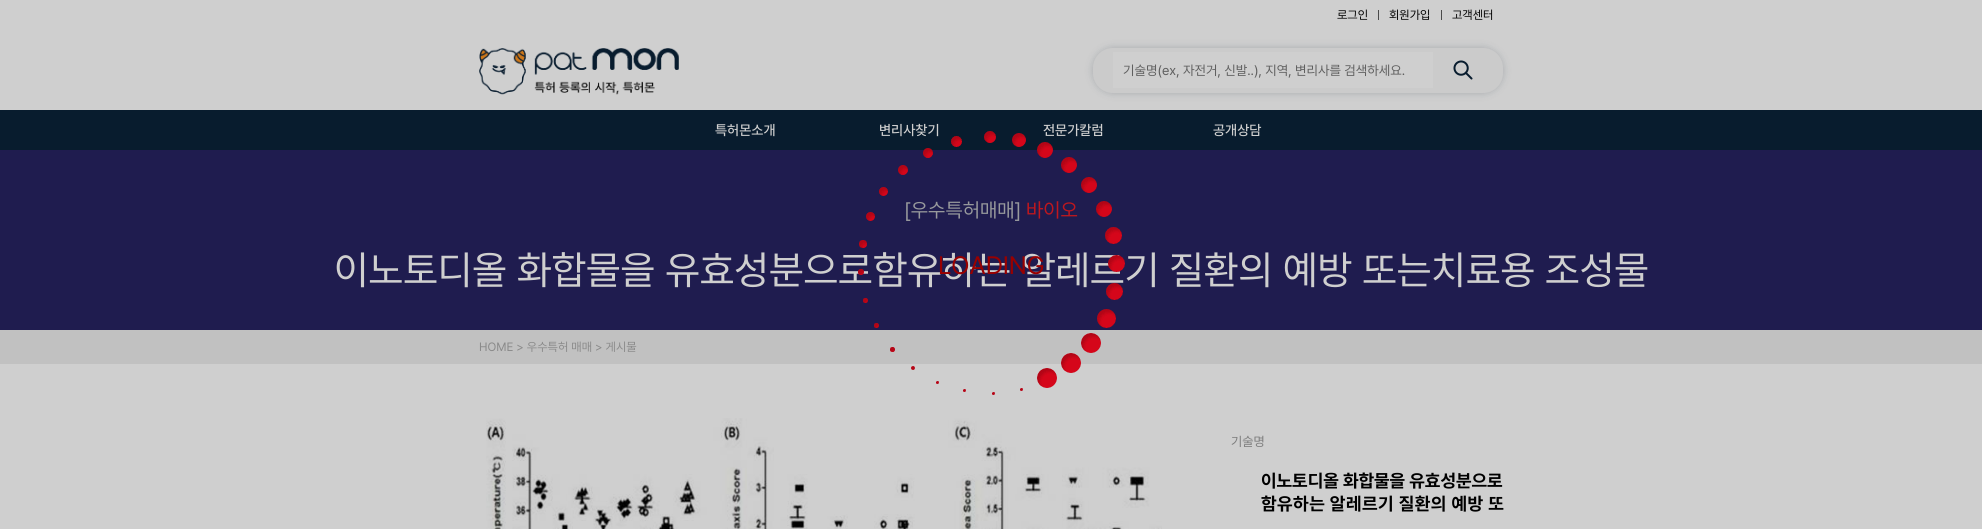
#include <cairo.h>
#include <math.h>
#include <stddef.h>

typedef struct { double x, y; const char *s; } line_t;

static void ink(cairo_t *ctx, unsigned color) {
    cairo_set_source_rgb(ctx, (color >> 16) / 255.0, (color >> 8 & 255) / 255.0, (color & 255) / 255.0);
}

static void write_spaced(cairo_t *ctx, double x, double y, const char *s, double letter, double word) {
    cairo_move_to(ctx, x, y);
    while (*s) {
        char ch[5] = {0};
        int n = 0;
        do ch[n++] = *s++; while ((*s & 0xC0) == 0x80);
        cairo_show_text(ctx, ch);
        cairo_rel_move_to(ctx, letter + word * (*ch == ' '), 0);
    }
}

static void round_path(cairo_t *ctx, double x, double y, double w, double h, double r) {
    cairo_new_sub_path(ctx);
    cairo_arc(ctx, x + w - r, y + h - r, r, 0, M_PI / 2);
    cairo_arc(ctx, x + r, y + h - r, r, M_PI / 2, M_PI);
    cairo_arc(ctx, x + r, y + r, r, M_PI, 1.5 * M_PI);
    cairo_arc(ctx, x + w - r, y + r, r, 1.5 * M_PI, 2 * M_PI);
    cairo_close_path(ctx);
}

static void blur_box(cairo_t *ctx, double x, double y, double w, double h, double r, double blur, double alpha) {
    cairo_push_group_with_content(ctx, CAIRO_CONTENT_ALPHA);
    cairo_set_operator(ctx, CAIRO_OPERATOR_SOURCE);
    for (int i = 15; i >= -15 && fmin(w, h) + blur * i / 3 > 0; i -= 2) {
        double e = blur * i / 6;
        cairo_set_source_rgba(ctx, 0, 0, 0, alpha * erfc((i - 1) / 8.5) / 2);
        round_path(ctx, x - e, y - e, w + 2 * e, h + 2 * e, fmax(0, fmin(r + e + blur * .6, fmin(w, h) / 2 + e)));
        cairo_fill(ctx);
    }
    cairo_pattern_t *soft = cairo_pop_group(ctx);
    cairo_mask(ctx, soft);
    cairo_pattern_destroy(soft);
}

static void paste(cairo_t *ctx, const char *path, double x, double y, double w, double h) {
    cairo_surface_t *image = cairo_image_surface_create_from_png(path);
    cairo_save(ctx);
    cairo_set_source_surface(ctx, image, x, y);
    cairo_rectangle(ctx, x, y, w, h);
    cairo_fill(ctx);
    cairo_restore(ctx);
    cairo_surface_destroy(image);
}

int main(void) {
    cairo_surface_t *surface = cairo_image_surface_create(CAIRO_FORMAT_RGB24, 1982, 529);
    cairo_t *ctx = cairo_create(surface);
    cairo_font_options_t *options = cairo_font_options_create();
    cairo_font_options_set_hint_metrics(options, CAIRO_HINT_METRICS_OFF);
    cairo_font_options_set_hint_style(options, CAIRO_HINT_STYLE_NONE);
    cairo_set_font_options(ctx, options);
    cairo_set_miter_limit(ctx, 4);
    ink(ctx, 0xCFCFCF);
    cairo_paint(ctx);
    cairo_select_font_face(ctx, "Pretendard", CAIRO_FONT_SLANT_NORMAL, CAIRO_FONT_WEIGHT_NORMAL);
    cairo_set_font_size(ctx, 12);
    ink(ctx, 0x000000);
    cairo_move_to(ctx, 1337, 19);
    cairo_show_text(ctx, "로그인");
    ink(ctx, 0x4A4A4A);
    cairo_rectangle(ctx, 1378, 10, 1, 10);
    cairo_fill(ctx);
    ink(ctx, 0x000000);
    cairo_move_to(ctx, 1389, 19);
    cairo_show_text(ctx, "회원가입");
    ink(ctx, 0x4A4A4A);
    cairo_rectangle(ctx, 1441, 10, 1, 10);
    cairo_fill(ctx);
    ink(ctx, 0x000000);
    cairo_move_to(ctx, 1452, 19);
    cairo_show_text(ctx, "고객센터");
    paste(ctx, "media/1.png", 479, 48, 200, 47);
    ink(ctx, 0x081C2E);
    blur_box(ctx, 1093, 48, 410, 45, 20, 4, 0.2);
    ink(ctx, 0xCBCBCB);
    round_path(ctx, 1093, 48, 410, 45, 20);
    cairo_fill(ctx);
    ink(ctx, 0xCFCFCF);
    cairo_rectangle(ctx, 1113, 52, 320, 36);
    cairo_fill(ctx);
    cairo_set_font_size(ctx, 13.3);
    ink(ctx, 0x5F5F5F);
    cairo_move_to(ctx, 1123, 75);
    cairo_show_text(ctx, "기술명(ex, 자전거, 신발..), 지역, 변리사를 검색하세요.");
    paste(ctx, "media/2.png", 1453, 60, 20, 20);
    ink(ctx, 0x081C2E);
    cairo_rectangle(ctx, 0, 110, 1982, 40);
    cairo_fill(ctx);
    cairo_select_font_face(ctx, "Pretendard Medium", CAIRO_FONT_SLANT_NORMAL, CAIRO_FONT_WEIGHT_NORMAL);
    cairo_set_font_size(ctx, 14);
    ink(ctx, 0xCFCFCF);
    {
        static const line_t items[] = {
            {715, 135, "특허몬소개"},
            {879, 135, "변리사찾기"},
            {1043, 135, "전문가칼럼"},
            {1213, 135, "공개상담"},
        };
        for (size_t i = 0; i < sizeof items / sizeof *items; i++) {
            cairo_move_to(ctx, items[i].x, items[i].y);
            cairo_show_text(ctx, items[i].s);
        }
    }
    ink(ctx, 0x1F1C4F);
    cairo_rectangle(ctx, 0, 150, 1982, 180);
    cairo_fill(ctx);
    cairo_select_font_face(ctx, "Pretendard", CAIRO_FONT_SLANT_NORMAL, CAIRO_FONT_WEIGHT_NORMAL);
    cairo_set_font_size(ctx, 20);
    ink(ctx, 0x97999C);
    cairo_move_to(ctx, 904, 217);
    cairo_show_text(ctx, "[우수특허매매]");
    ink(ctx, 0xC0171D);
    cairo_move_to(ctx, 1026, 217);
    cairo_show_text(ctx, "바이오");
    cairo_set_font_size(ctx, 40);
    ink(ctx, 0xCFCFCF);
    cairo_move_to(ctx, 334, 284);
    cairo_show_text(ctx, "이노토디올 화합물을 유효성분으로함유하는 알레르기 질환의 예방 또는치료용 조성물");
    ink(ctx, 0xC1C1C1);
    cairo_rectangle(ctx, 0, 330, 1982, 34);
    cairo_fill(ctx);
    cairo_set_font_size(ctx, 12);
    ink(ctx, 0x8A8A8A);
    cairo_move_to(ctx, 479, 351);
    cairo_show_text(ctx, "HOME > 우수특허 매매 > 게시물");
    paste(ctx, "media/3.png", 486, 418, 676, 111);
    cairo_set_font_size(ctx, 13);
    ink(ctx, 0x7C7C7C);
    cairo_move_to(ctx, 1231, 446);
    cairo_show_text(ctx, "기술명");
    cairo_select_font_face(ctx, "Pretendard", CAIRO_FONT_SLANT_NORMAL, CAIRO_FONT_WEIGHT_BOLD);
    cairo_set_font_size(ctx, 18);
    ink(ctx, 0x000000);
    cairo_move_to(ctx, 1261, 487);
    cairo_show_text(ctx, "이노토디올 화합물을 유효성분으로");
    write_spaced(ctx, 1261, 510, "함유하는 알레르기 질환의 예방 또", 0.5, 0);
    paste(ctx, "media/4.png", 858, 131, 267, 264);
    cairo_select_font_face(ctx, "Pretendard", CAIRO_FONT_SLANT_NORMAL, CAIRO_FONT_WEIGHT_NORMAL);
    cairo_set_font_size(ctx, 25);
    ink(ctx, 0x990000);
    cairo_move_to(ctx, 938, 274);
    cairo_show_text(ctx, "LOADING");
    cairo_surface_write_to_png(surface, "image.png");
    cairo_font_options_destroy(options);
    cairo_destroy(ctx);
    cairo_surface_destroy(surface);
    return 0;
}
